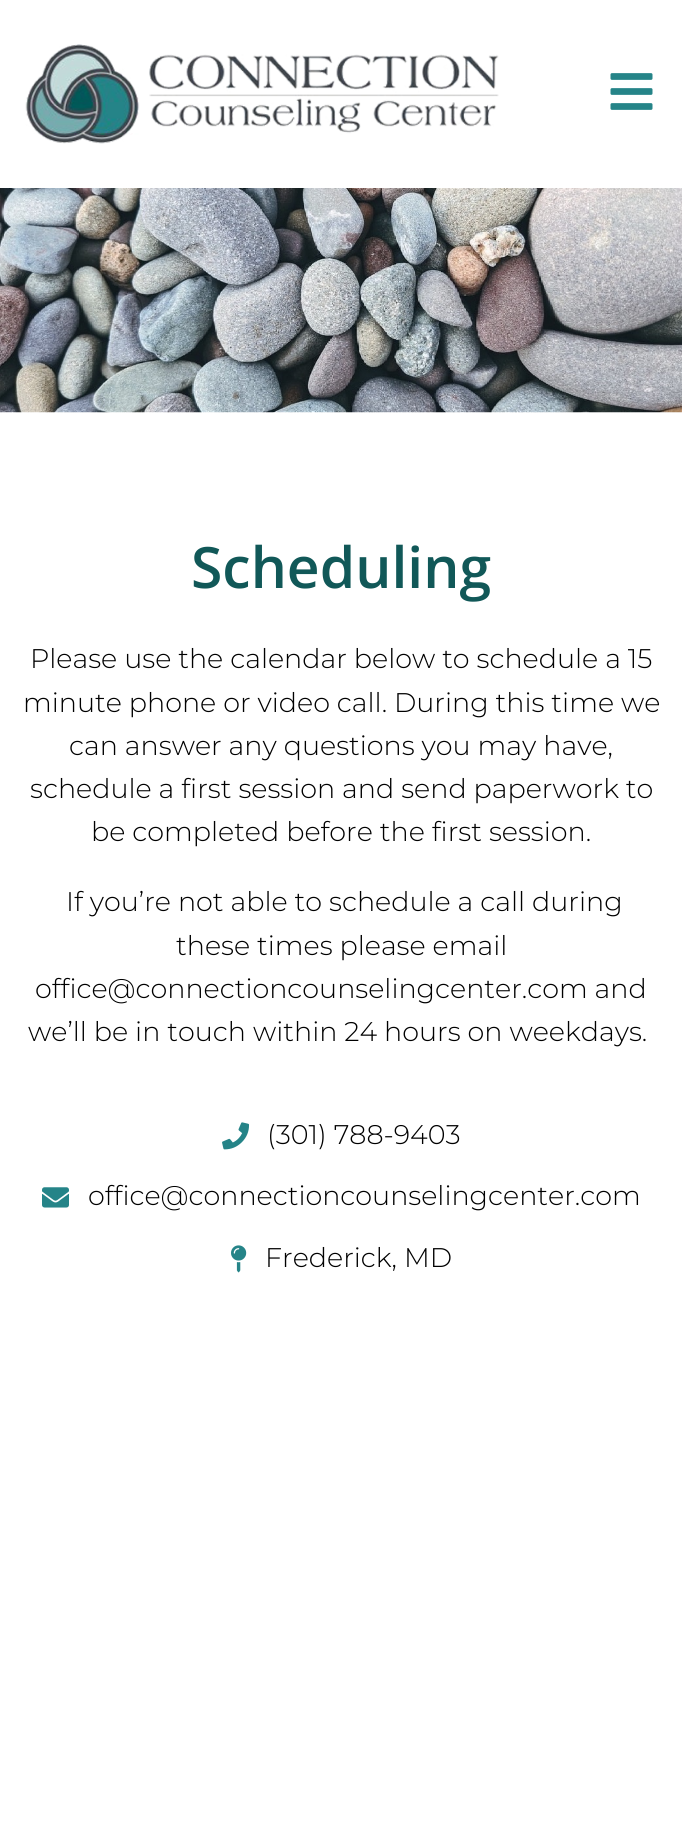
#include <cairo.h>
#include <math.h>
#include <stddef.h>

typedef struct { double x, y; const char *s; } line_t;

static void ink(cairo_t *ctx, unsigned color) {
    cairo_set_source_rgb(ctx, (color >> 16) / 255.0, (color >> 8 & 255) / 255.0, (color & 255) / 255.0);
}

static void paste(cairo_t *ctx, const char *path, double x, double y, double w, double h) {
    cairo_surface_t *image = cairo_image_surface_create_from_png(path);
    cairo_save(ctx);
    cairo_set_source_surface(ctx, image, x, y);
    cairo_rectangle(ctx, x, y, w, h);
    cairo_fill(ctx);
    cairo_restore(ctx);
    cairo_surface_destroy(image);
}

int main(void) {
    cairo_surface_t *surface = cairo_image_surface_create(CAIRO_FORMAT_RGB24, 682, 1834);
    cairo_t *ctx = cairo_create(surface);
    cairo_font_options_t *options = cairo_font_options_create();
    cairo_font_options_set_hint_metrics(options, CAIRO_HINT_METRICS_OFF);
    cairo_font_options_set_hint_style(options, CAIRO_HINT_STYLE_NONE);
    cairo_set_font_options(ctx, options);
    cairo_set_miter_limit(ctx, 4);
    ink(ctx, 0xFFFFFF);
    cairo_paint(ctx);
    paste(ctx, "media/1.png", 25, 44, 474, 100);
    paste(ctx, "media/2.png", 610, 73, 43, 37);
    paste(ctx, "media/3.png", 0, 188, 682, 225);
    cairo_select_font_face(ctx, "Open Sans SemiBold", CAIRO_FONT_SLANT_NORMAL, CAIRO_FONT_WEIGHT_NORMAL);
    cairo_set_font_size(ctx, 57);
    ink(ctx, 0x115858);
    cairo_move_to(ctx, 191, 588);
    cairo_show_text(ctx, "Scheduling");
    cairo_select_font_face(ctx, "Montserrat Light", CAIRO_FONT_SLANT_NORMAL, CAIRO_FONT_WEIGHT_NORMAL);
    cairo_set_font_size(ctx, 27);
    ink(ctx, 0x000000);
    {
        static const line_t items[] = {
            {30, 668, "Please use the calendar below to schedule a 15"},
            {23, 712, "minute phone or video call. During this time we"},
            {69, 755, "can answer any questions you may have,"},
            {30, 798, "schedule a first session and send paperwork to"},
            {91, 841, "be completed before the first session."},
            {66, 911, "If you’re not able to schedule a call during"},
            {176, 955, "these times please email"},
            {35, 998, "office@connectioncounselingcenter.com and"},
            {28, 1041, "we’ll be in touch within 24 hours on weekdays."},
        };
        for (size_t i = 0; i < sizeof items / sizeof *items; i++) {
            cairo_move_to(ctx, items[i].x, items[i].y);
            cairo_show_text(ctx, items[i].s);
        }
    }
    paste(ctx, "media/4.png", 222, 1122, 28, 28);
    cairo_move_to(ctx, 267, 1144);
    cairo_show_text(ctx, "(301) 788-9403");
    paste(ctx, "media/5.png", 42, 1187, 27, 21);
    cairo_move_to(ctx, 88, 1205);
    cairo_show_text(ctx, "office@connectioncounselingcenter.com");
    paste(ctx, "media/6.png", 231, 1245, 16, 28);
    cairo_move_to(ctx, 265, 1267);
    cairo_show_text(ctx, "Frederick, MD");
    cairo_surface_write_to_png(surface, "image.png");
    cairo_font_options_destroy(options);
    cairo_destroy(ctx);
    cairo_surface_destroy(surface);
    return 0;
}
